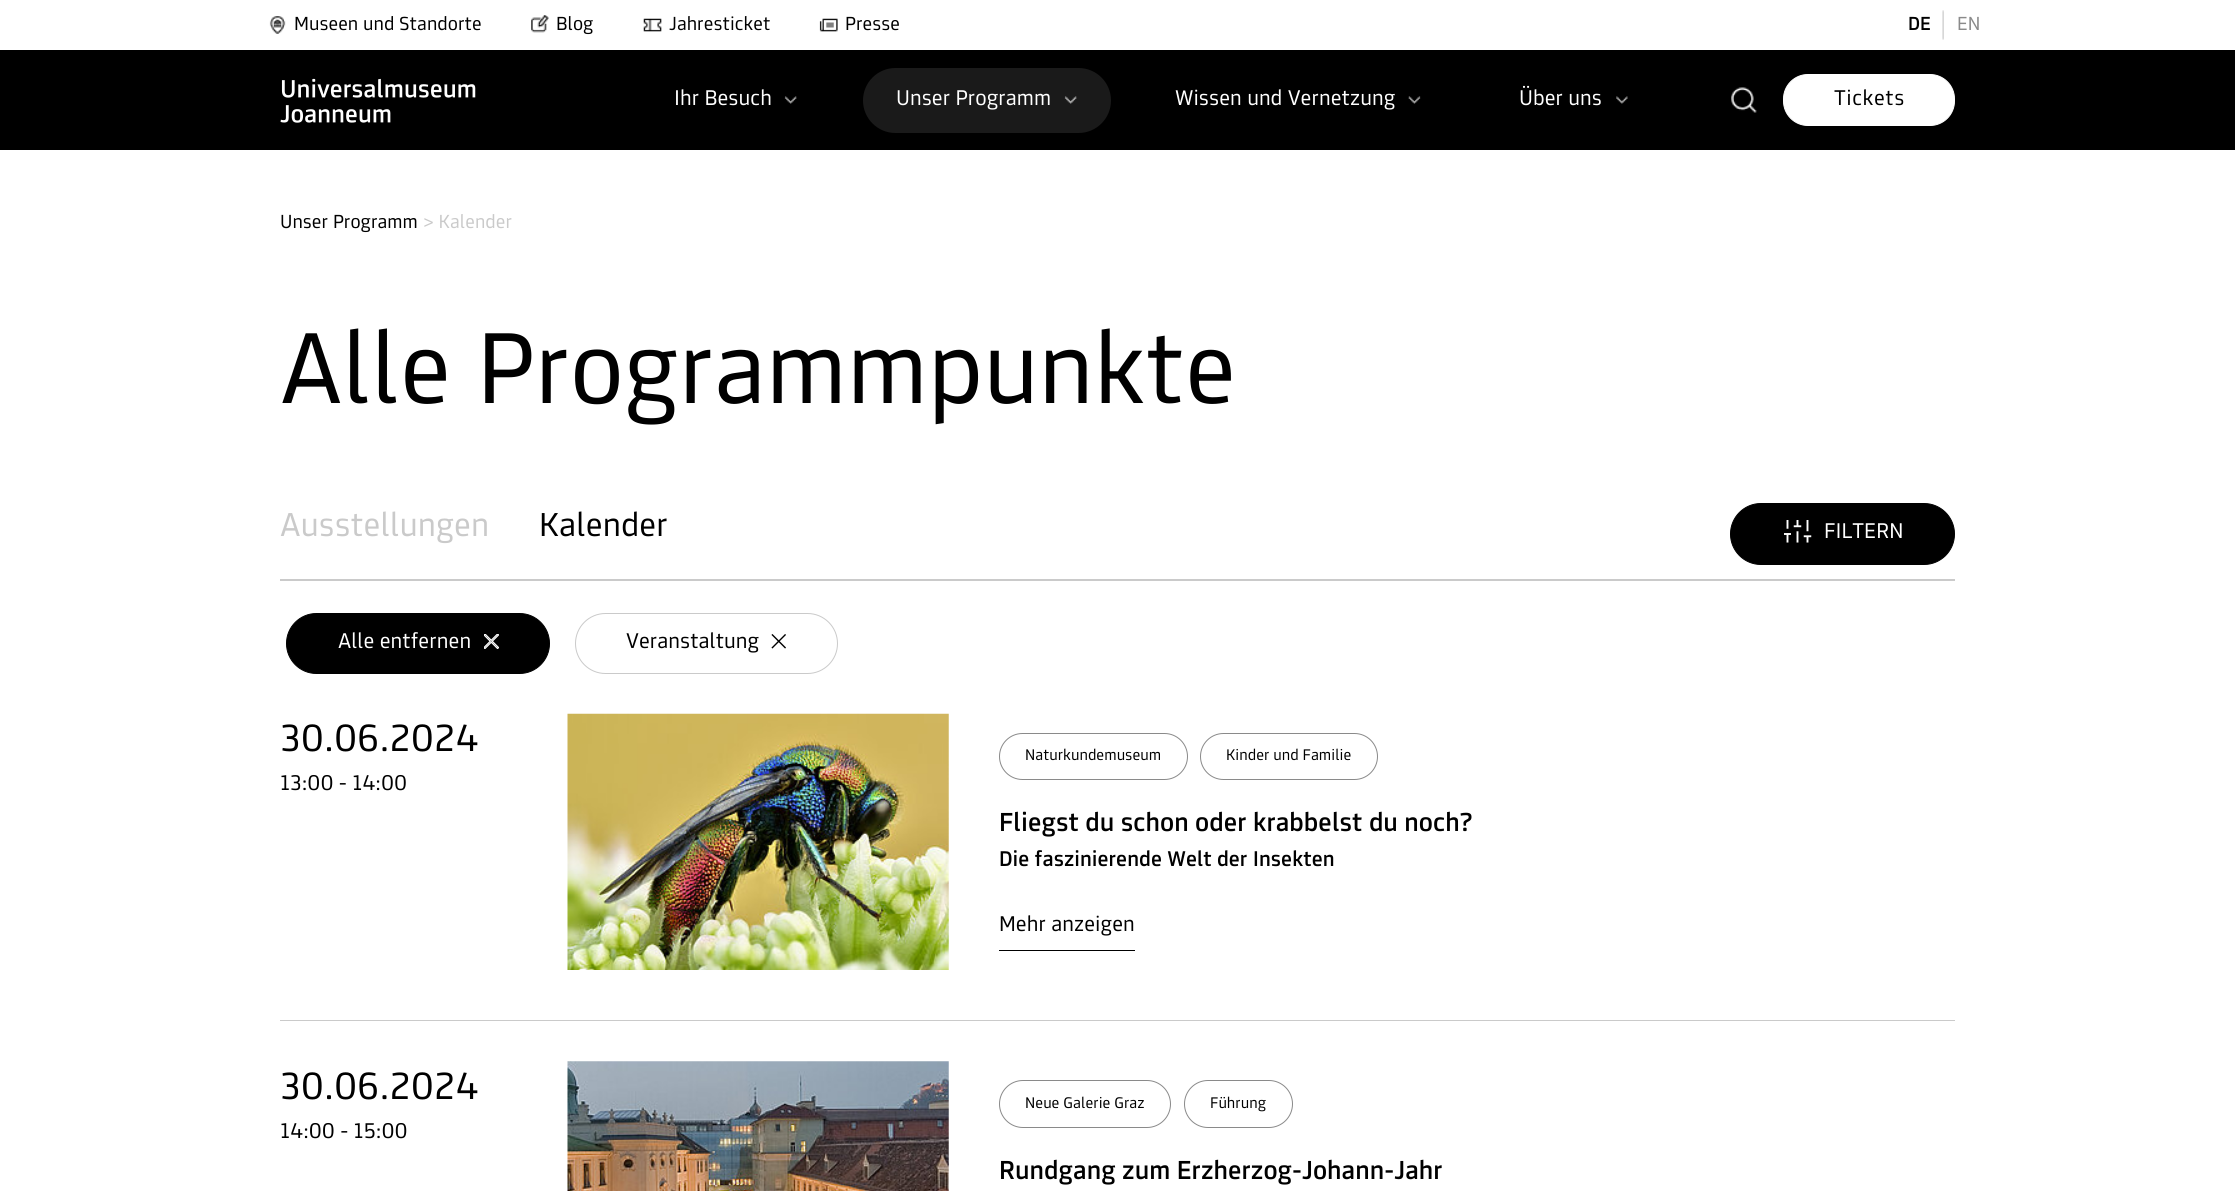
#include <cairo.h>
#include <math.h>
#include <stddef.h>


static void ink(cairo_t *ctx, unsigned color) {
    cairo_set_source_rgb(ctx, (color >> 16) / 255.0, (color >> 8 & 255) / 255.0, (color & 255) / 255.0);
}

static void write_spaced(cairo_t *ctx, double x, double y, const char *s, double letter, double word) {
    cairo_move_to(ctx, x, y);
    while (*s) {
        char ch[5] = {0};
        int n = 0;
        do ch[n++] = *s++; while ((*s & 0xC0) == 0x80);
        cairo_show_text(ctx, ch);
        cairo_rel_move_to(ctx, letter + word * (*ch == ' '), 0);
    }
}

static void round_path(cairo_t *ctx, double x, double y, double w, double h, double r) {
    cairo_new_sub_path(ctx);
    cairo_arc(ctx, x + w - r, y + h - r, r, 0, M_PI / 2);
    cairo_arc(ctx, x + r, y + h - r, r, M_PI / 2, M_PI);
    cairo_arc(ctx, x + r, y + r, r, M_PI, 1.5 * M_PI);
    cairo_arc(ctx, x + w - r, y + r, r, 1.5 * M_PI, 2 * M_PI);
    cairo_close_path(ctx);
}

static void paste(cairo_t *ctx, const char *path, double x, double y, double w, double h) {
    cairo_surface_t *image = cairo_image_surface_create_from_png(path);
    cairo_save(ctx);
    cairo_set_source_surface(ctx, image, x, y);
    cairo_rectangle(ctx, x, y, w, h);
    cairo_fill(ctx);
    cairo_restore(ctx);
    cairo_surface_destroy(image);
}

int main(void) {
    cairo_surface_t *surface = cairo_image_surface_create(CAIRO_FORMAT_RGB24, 2235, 1191);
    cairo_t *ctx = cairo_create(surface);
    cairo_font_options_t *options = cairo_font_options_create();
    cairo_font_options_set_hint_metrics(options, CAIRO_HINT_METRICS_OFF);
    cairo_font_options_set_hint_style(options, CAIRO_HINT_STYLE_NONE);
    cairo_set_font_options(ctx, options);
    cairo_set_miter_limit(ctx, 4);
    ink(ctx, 0xFFFFFF);
    cairo_paint(ctx);
    paste(ctx, "media/1.png", 269, 16, 17, 18);
    cairo_select_font_face(ctx, "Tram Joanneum", CAIRO_FONT_SLANT_NORMAL, CAIRO_FONT_WEIGHT_NORMAL);
    cairo_set_font_size(ctx, 20);
    ink(ctx, 0x000000);
    cairo_move_to(ctx, 294, 30);
    cairo_show_text(ctx, "Museen und Standorte");
    paste(ctx, "media/2.png", 531, 15, 18, 18);
    cairo_move_to(ctx, 556, 30);
    cairo_show_text(ctx, "Blog");
    paste(ctx, "media/3.png", 643, 18, 19, 14);
    cairo_move_to(ctx, 669, 30);
    cairo_show_text(ctx, "Jahresticket");
    paste(ctx, "media/4.png", 819, 18, 19, 14);
    cairo_move_to(ctx, 845, 30);
    cairo_show_text(ctx, "Presse");
    cairo_select_font_face(ctx, "Tram Joanneum Medium", CAIRO_FONT_SLANT_NORMAL, CAIRO_FONT_WEIGHT_NORMAL);
    cairo_move_to(ctx, 1908, 30);
    cairo_show_text(ctx, "DE");
    paste(ctx, "media/5.png", 1942, 10, 2, 30);
    cairo_select_font_face(ctx, "Tram Joanneum", CAIRO_FONT_SLANT_NORMAL, CAIRO_FONT_WEIGHT_NORMAL);
    ink(ctx, 0x8A8A8A);
    cairo_move_to(ctx, 1957, 30);
    cairo_show_text(ctx, "EN");
    ink(ctx, 0x000000);
    cairo_rectangle(ctx, 0, 50, 2235, 100);
    cairo_fill(ctx);
    paste(ctx, "media/6.png", 280, 78, 196, 45);
    cairo_set_font_size(ctx, 22.5);
    ink(ctx, 0xFFFFFF);
    cairo_move_to(ctx, 674, 105);
    cairo_show_text(ctx, "Ihr Besuch");
    paste(ctx, "media/7.png", 784, 96, 13, 8);
    ink(ctx, 0x1A1A1A);
    round_path(ctx, 863, 68, 248, 65, 32.5);
    cairo_fill(ctx);
    ink(ctx, 0xFFFFFF);
    cairo_move_to(ctx, 896, 105);
    cairo_show_text(ctx, "Unser Programm");
    paste(ctx, "media/8.png", 1064, 96, 13, 8);
    cairo_move_to(ctx, 1175, 105);
    cairo_show_text(ctx, "Wissen und Vernetzung");
    paste(ctx, "media/9.png", 1408, 96, 13, 8);
    cairo_move_to(ctx, 1519, 105);
    cairo_show_text(ctx, "Über uns");
    paste(ctx, "media/10.png", 1616, 96, 12, 8);
    paste(ctx, "media/11.png", 1731, 87, 26, 26);
    round_path(ctx, 1783.5, 74.5, 171, 51, 24.5);
    cairo_fill_preserve(ctx);
    cairo_set_line_width(ctx, 1);
    cairo_stroke(ctx);
    ink(ctx, 0x000000);
    write_spaced(ctx, 1834, 105, "Tickets", 0.5, 0);
    cairo_set_font_size(ctx, 20);
    cairo_move_to(ctx, 280, 228);
    cairo_show_text(ctx, "Unser Programm");
    ink(ctx, 0xCACACA);
    cairo_move_to(ctx, 423, 228);
    cairo_show_text(ctx, "> Kalender");
    cairo_set_font_size(ctx, 106.25);
    ink(ctx, 0x000000);
    cairo_move_to(ctx, 280, 403);
    cairo_show_text(ctx, "Alle Programmpunkte");
    ink(ctx, 0xCACACA);
    cairo_rectangle(ctx, 280, 579, 1675, 2);
    cairo_fill(ctx);
    cairo_set_font_size(ctx, 35);
    cairo_move_to(ctx, 280, 536);
    cairo_show_text(ctx, "Ausstellungen");
    ink(ctx, 0x000000);
    cairo_move_to(ctx, 539, 536);
    cairo_show_text(ctx, "Kalender");
    round_path(ctx, 1730.5, 503.5, 224, 61, 30.5);
    cairo_fill_preserve(ctx);
    cairo_stroke(ctx);
    paste(ctx, "media/12.png", 1784, 520, 28, 23);
    cairo_set_font_size(ctx, 22.5);
    ink(ctx, 0xFFFFFF);
    cairo_move_to(ctx, 1824, 538);
    cairo_show_text(ctx, "FILTERN");
    ink(ctx, 0x000000);
    round_path(ctx, 286.5, 613.5, 263, 60, 30);
    cairo_fill_preserve(ctx);
    cairo_stroke(ctx);
    ink(ctx, 0xFFFFFF);
    cairo_move_to(ctx, 338, 648);
    cairo_show_text(ctx, "Alle entfernen");
    paste(ctx, "media/13.png", 484, 634, 15, 15);
    round_path(ctx, 575.5, 613.5, 262, 60, 30);
    ink(ctx, 0xCACACA);
    cairo_stroke(ctx);
    ink(ctx, 0x000000);
    cairo_move_to(ctx, 626, 648);
    cairo_show_text(ctx, "Veranstaltung");
    paste(ctx, "media/14.png", 771, 634, 15, 15);
    ink(ctx, 0xCACACA);
    cairo_rectangle(ctx, 280, 1020, 1675, 1);
    cairo_fill(ctx);
    cairo_set_font_size(ctx, 40);
    ink(ctx, 0x000000);
    cairo_move_to(ctx, 280, 751);
    cairo_show_text(ctx, "30.06.2024");
    cairo_set_font_size(ctx, 22.5);
    cairo_move_to(ctx, 280, 790);
    cairo_show_text(ctx, "13:00 - 14:00");
    paste(ctx, "media/15.png", 567, 713, 382, 257);
    round_path(ctx, 999.5, 733.5, 188, 46, 23);
    ink(ctx, 0x8A8A8A);
    cairo_stroke(ctx);
    cairo_set_font_size(ctx, 16.25);
    ink(ctx, 0x000000);
    cairo_move_to(ctx, 1025, 760);
    cairo_show_text(ctx, "Naturkundemuseum");
    round_path(ctx, 1200.5, 733.5, 177, 46, 23);
    ink(ctx, 0x8A8A8A);
    cairo_stroke(ctx);
    ink(ctx, 0x000000);
    cairo_move_to(ctx, 1226, 760);
    cairo_show_text(ctx, "Kinder und Familie");
    cairo_select_font_face(ctx, "Tram Joanneum Medium", CAIRO_FONT_SLANT_NORMAL, CAIRO_FONT_WEIGHT_NORMAL);
    cairo_set_font_size(ctx, 27.5);
    cairo_move_to(ctx, 999, 831);
    cairo_show_text(ctx, "Fliegst du schon oder krabbelst du noch?");
    cairo_set_font_size(ctx, 22.5);
    cairo_move_to(ctx, 999, 866);
    cairo_show_text(ctx, "Die faszinierende Welt der Insekten");
    cairo_select_font_face(ctx, "Tram Joanneum", CAIRO_FONT_SLANT_NORMAL, CAIRO_FONT_WEIGHT_NORMAL);
    cairo_move_to(ctx, 999, 931);
    cairo_show_text(ctx, "Mehr anzeigen");
    cairo_rectangle(ctx, 999, 950, 136, 1);
    cairo_fill(ctx);
    cairo_set_font_size(ctx, 40);
    cairo_move_to(ctx, 280, 1099);
    cairo_show_text(ctx, "30.06.2024");
    cairo_set_font_size(ctx, 22.5);
    cairo_move_to(ctx, 280, 1138);
    cairo_show_text(ctx, "14:00 - 15:00");
    paste(ctx, "media/16.png", 567, 1061, 382, 130);
    round_path(ctx, 999.5, 1080.5, 171, 47, 23.5);
    ink(ctx, 0x8A8A8A);
    cairo_stroke(ctx);
    cairo_set_font_size(ctx, 16.25);
    ink(ctx, 0x000000);
    cairo_move_to(ctx, 1025, 1108);
    cairo_show_text(ctx, "Neue Galerie Graz");
    round_path(ctx, 1184.5, 1080.5, 108, 47, 23.5);
    ink(ctx, 0x8A8A8A);
    cairo_stroke(ctx);
    ink(ctx, 0x000000);
    cairo_move_to(ctx, 1210, 1108);
    cairo_show_text(ctx, "Führung");
    cairo_select_font_face(ctx, "Tram Joanneum Medium", CAIRO_FONT_SLANT_NORMAL, CAIRO_FONT_WEIGHT_NORMAL);
    cairo_set_font_size(ctx, 27.5);
    cairo_move_to(ctx, 999, 1179);
    cairo_show_text(ctx, "Rundgang zum Erzherzog-Johann-Jahr");
    cairo_surface_write_to_png(surface, "image.png");
    cairo_font_options_destroy(options);
    cairo_destroy(ctx);
    cairo_surface_destroy(surface);
    return 0;
}
